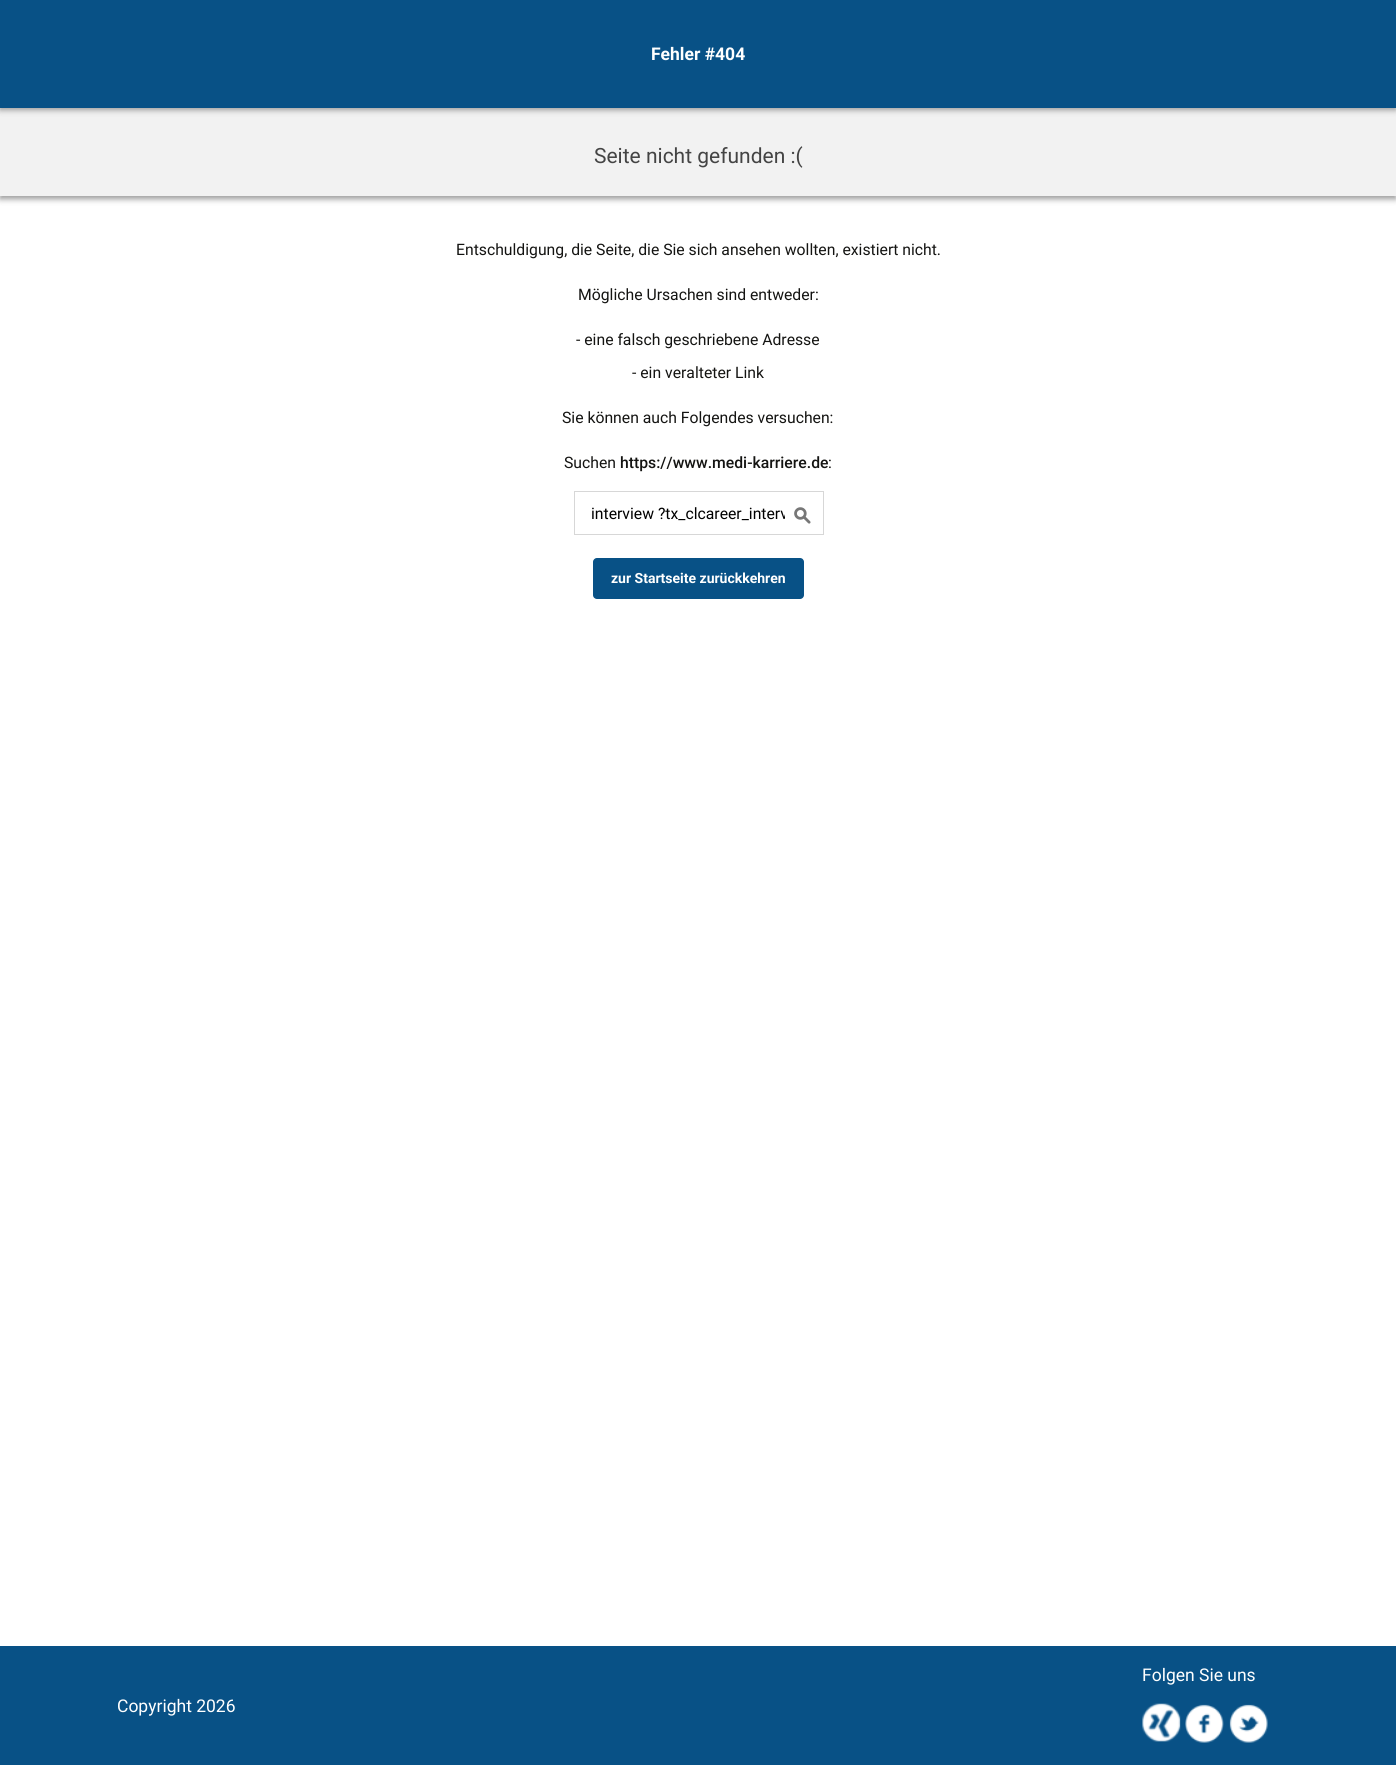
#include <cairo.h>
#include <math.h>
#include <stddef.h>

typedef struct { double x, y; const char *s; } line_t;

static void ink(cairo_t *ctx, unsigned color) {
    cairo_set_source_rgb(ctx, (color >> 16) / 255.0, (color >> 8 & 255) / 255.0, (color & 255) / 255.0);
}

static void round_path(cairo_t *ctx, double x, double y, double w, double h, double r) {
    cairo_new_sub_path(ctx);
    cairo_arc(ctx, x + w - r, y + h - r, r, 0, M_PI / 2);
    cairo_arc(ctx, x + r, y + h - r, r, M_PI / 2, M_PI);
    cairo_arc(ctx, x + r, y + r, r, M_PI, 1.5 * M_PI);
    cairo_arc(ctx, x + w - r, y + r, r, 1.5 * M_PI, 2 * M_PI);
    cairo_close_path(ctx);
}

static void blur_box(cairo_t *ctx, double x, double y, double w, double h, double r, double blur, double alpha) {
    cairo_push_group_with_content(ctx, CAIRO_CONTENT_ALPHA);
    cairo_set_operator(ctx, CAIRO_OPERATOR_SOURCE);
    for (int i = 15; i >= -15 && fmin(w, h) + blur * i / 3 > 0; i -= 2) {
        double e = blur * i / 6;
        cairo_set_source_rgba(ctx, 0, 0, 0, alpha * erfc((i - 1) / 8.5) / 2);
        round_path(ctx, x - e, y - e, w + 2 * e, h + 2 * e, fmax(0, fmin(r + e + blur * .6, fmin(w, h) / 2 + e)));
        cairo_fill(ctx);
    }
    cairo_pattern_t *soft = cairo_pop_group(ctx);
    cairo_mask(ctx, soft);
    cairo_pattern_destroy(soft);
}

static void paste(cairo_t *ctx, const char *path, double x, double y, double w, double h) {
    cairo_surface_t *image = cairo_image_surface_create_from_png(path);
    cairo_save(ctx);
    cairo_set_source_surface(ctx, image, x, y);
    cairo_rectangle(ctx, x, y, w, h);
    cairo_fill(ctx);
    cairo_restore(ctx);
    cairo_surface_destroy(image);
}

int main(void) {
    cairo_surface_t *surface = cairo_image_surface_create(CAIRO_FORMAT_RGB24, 1396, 1765);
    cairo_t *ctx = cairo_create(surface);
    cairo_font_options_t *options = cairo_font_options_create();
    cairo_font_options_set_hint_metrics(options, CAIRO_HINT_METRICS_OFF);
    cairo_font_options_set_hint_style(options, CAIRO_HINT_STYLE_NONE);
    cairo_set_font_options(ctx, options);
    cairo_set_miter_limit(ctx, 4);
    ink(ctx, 0xFFFFFF);
    cairo_paint(ctx);
    ink(ctx, 0x999999);
    blur_box(ctx, 0, 110, 1396, 89, 0, 3, 1);
    ink(ctx, 0xF2F2F2);
    cairo_rectangle(ctx, 0, 108, 1396, 88);
    cairo_fill(ctx);
    ink(ctx, 0x999999);
    blur_box(ctx, 0, 3, 1396, 107, 0, 3, 1);
    ink(ctx, 0x085186);
    cairo_rectangle(ctx, 0, 0, 1396, 108);
    cairo_fill(ctx);
    cairo_select_font_face(ctx, "Roboto", CAIRO_FONT_SLANT_NORMAL, CAIRO_FONT_WEIGHT_BOLD);
    cairo_set_font_size(ctx, 17.5);
    ink(ctx, 0xFFFFFF);
    cairo_move_to(ctx, 651, 60);
    cairo_show_text(ctx, "Fehler #404");
    cairo_select_font_face(ctx, "Roboto", CAIRO_FONT_SLANT_NORMAL, CAIRO_FONT_WEIGHT_NORMAL);
    cairo_set_font_size(ctx, 21);
    ink(ctx, 0x444444);
    cairo_move_to(ctx, 594, 163);
    cairo_show_text(ctx, "Seite nicht gefunden :(");
    cairo_set_font_size(ctx, 15.75);
    ink(ctx, 0x141412);
    {
        static const line_t items[] = {
            {456, 255, "Entschuldigung, die Seite, die Sie sich ansehen wollten, existiert nicht."},
            {578, 300, "Mögliche Ursachen sind entweder:"},
            {576, 345, "- eine falsch geschriebene Adresse"},
            {632, 378, "- ein veralteter Link"},
            {562, 423, "Sie können auch Folgendes versuchen:"},
            {564, 468, "Suchen"},
        };
        for (size_t i = 0; i < sizeof items / sizeof *items; i++) {
            cairo_move_to(ctx, items[i].x, items[i].y);
            cairo_show_text(ctx, items[i].s);
        }
    }
    cairo_select_font_face(ctx, "Roboto Medium", CAIRO_FONT_SLANT_NORMAL, CAIRO_FONT_WEIGHT_NORMAL);
    cairo_move_to(ctx, 620, 468);
    cairo_show_text(ctx, "https://www.medi-karriere.de");
    cairo_select_font_face(ctx, "Roboto", CAIRO_FONT_SLANT_NORMAL, CAIRO_FONT_WEIGHT_NORMAL);
    cairo_move_to(ctx, 828, 468);
    cairo_show_text(ctx, ":");
    cairo_rectangle(ctx, 574.5, 491.5, 249, 43);
    ink(ctx, 0xD7D7D7);
    cairo_set_line_width(ctx, 1);
    cairo_stroke(ctx);
    cairo_save(ctx);
    cairo_rectangle(ctx, 588, 493, 197, 41);
    cairo_clip(ctx);
    ink(ctx, 0x000000);
    cairo_move_to(ctx, 591, 519);
    cairo_show_text(ctx, "interview ?tx_clcareer_interv");
    cairo_restore(ctx);
    paste(ctx, "media/1.png", 794, 507, 17, 17);
    ink(ctx, 0x085186);
    round_path(ctx, 593, 558, 211, 41, 4);
    cairo_fill(ctx);
    cairo_select_font_face(ctx, "Roboto", CAIRO_FONT_SLANT_NORMAL, CAIRO_FONT_WEIGHT_BOLD);
    cairo_set_font_size(ctx, 14);
    ink(ctx, 0xFFFFFF);
    cairo_move_to(ctx, 611, 583);
    cairo_show_text(ctx, "zur Startseite zurückkehren");
    ink(ctx, 0x085186);
    cairo_rectangle(ctx, 0, 1646, 1396, 119);
    cairo_fill(ctx);
    cairo_select_font_face(ctx, "Roboto", CAIRO_FONT_SLANT_NORMAL, CAIRO_FONT_WEIGHT_NORMAL);
    cairo_set_font_size(ctx, 17.5);
    ink(ctx, 0xFFFFFF);
    cairo_move_to(ctx, 1142, 1681);
    cairo_show_text(ctx, "Folgen Sie uns");
    paste(ctx, "media/2.png", 1142, 1703, 39, 39);
    paste(ctx, "media/3.png", 1185, 1704, 39, 39);
    paste(ctx, "media/4.png", 1229, 1704, 39, 39);
    cairo_move_to(ctx, 117, 1712);
    cairo_show_text(ctx, "Copyright 2026");
    cairo_surface_write_to_png(surface, "image.png");
    cairo_font_options_destroy(options);
    cairo_destroy(ctx);
    cairo_surface_destroy(surface);
    return 0;
}
